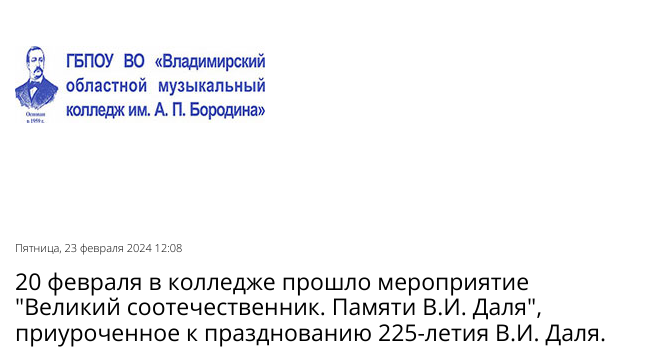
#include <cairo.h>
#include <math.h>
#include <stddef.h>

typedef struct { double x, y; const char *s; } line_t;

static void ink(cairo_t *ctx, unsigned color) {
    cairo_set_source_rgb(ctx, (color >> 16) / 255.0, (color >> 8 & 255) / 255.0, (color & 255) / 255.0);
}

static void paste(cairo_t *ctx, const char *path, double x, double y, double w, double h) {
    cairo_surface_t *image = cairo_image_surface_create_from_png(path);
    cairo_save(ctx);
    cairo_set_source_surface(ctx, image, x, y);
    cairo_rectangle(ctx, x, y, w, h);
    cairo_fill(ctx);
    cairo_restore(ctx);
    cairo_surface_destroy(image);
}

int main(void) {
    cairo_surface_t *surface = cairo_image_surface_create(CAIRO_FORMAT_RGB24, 647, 363);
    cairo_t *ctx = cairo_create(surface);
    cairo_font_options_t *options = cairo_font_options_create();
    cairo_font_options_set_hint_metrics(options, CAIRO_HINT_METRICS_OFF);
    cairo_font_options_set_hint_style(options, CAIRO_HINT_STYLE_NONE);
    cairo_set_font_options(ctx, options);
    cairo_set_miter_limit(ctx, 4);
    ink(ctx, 0xFFFFFF);
    cairo_paint(ctx);
    paste(ctx, "media/1.png", 15, 46, 250, 77);
    cairo_select_font_face(ctx, "Open Sans Light", CAIRO_FONT_SLANT_NORMAL, CAIRO_FONT_WEIGHT_NORMAL);
    cairo_set_font_size(ctx, 11);
    ink(ctx, 0x000000);
    cairo_move_to(ctx, 15, 252);
    cairo_show_text(ctx, "Пятница, 23 февраля 2024 12:08");
    cairo_select_font_face(ctx, "Open Sans", CAIRO_FONT_SLANT_NORMAL, CAIRO_FONT_WEIGHT_NORMAL);
    cairo_set_font_size(ctx, 23);
    {
        static const line_t items[] = {
            {15, 290, "20 февраля в колледже прошло мероприятие"},
            {15, 315, "\"Великий соотечественник. Памяти В.И. Даля\","},
            {15, 341, "приуроченное к празднованию 225-летия В.И. Даля."},
        };
        for (size_t i = 0; i < sizeof items / sizeof *items; i++) {
            cairo_move_to(ctx, items[i].x, items[i].y);
            cairo_show_text(ctx, items[i].s);
        }
    }
    cairo_surface_write_to_png(surface, "image.png");
    cairo_font_options_destroy(options);
    cairo_destroy(ctx);
    cairo_surface_destroy(surface);
    return 0;
}
